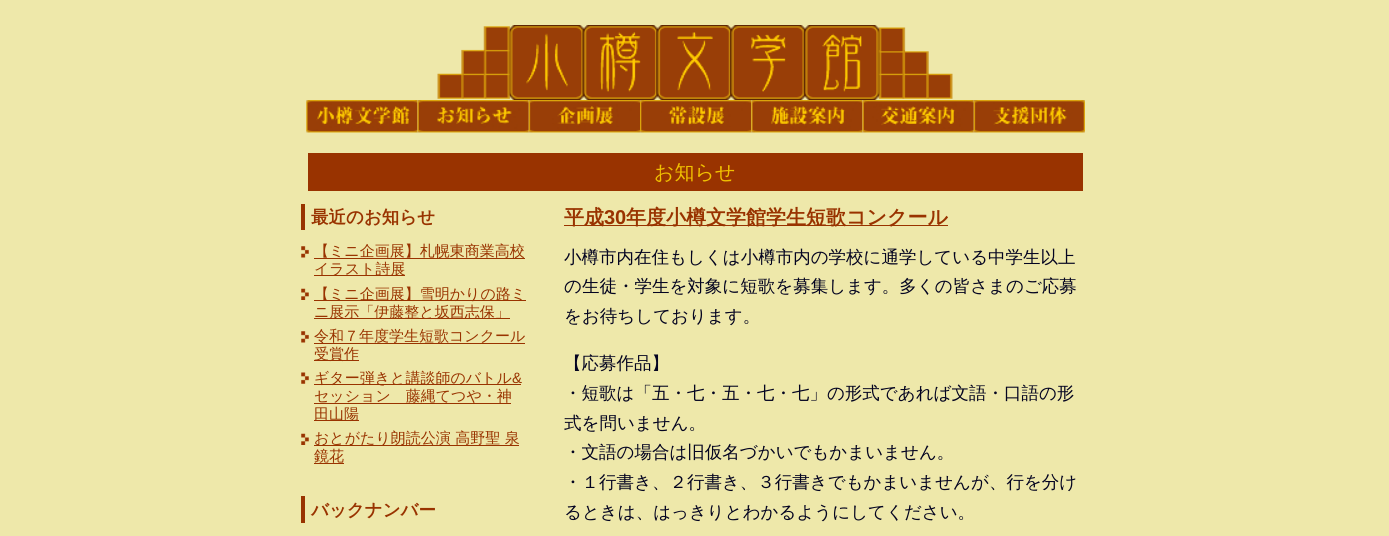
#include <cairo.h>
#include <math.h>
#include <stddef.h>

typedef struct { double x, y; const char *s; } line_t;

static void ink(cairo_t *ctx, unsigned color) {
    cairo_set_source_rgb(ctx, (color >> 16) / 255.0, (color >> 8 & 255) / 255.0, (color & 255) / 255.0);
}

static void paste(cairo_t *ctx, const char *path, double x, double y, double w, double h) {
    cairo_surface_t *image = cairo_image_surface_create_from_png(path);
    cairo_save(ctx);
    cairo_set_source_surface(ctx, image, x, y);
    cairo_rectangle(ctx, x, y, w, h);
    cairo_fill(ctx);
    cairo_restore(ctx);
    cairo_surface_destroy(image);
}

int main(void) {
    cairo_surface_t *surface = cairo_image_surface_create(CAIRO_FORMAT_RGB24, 1389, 536);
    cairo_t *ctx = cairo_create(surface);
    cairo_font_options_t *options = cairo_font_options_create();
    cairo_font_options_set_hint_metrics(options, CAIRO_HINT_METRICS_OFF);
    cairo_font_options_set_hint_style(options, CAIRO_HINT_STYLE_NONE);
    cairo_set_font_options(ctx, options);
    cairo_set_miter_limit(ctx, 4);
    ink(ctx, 0xEEE8AA);
    cairo_paint(ctx);
    paste(ctx, "media/1.png", 437, 25, 516, 75);
    paste(ctx, "media/2.png", 306, 100, 112, 33);
    paste(ctx, "media/3.png", 417, 100, 112, 33);
    paste(ctx, "media/4.png", 528, 100, 112, 33);
    paste(ctx, "media/5.png", 640, 100, 112, 33);
    paste(ctx, "media/6.png", 751, 100, 112, 33);
    paste(ctx, "media/7.png", 862, 100, 112, 33);
    paste(ctx, "media/8.png", 973, 100, 112, 33);
    ink(ctx, 0x993300);
    cairo_rectangle(ctx, 308, 153, 775, 38);
    cairo_fill(ctx);
    cairo_select_font_face(ctx, "WenQuanYi Zen Hei Medium", CAIRO_FONT_SLANT_NORMAL, CAIRO_FONT_WEIGHT_NORMAL);
    cairo_set_font_size(ctx, 20);
    ink(ctx, 0xF0C000);
    cairo_move_to(ctx, 654, 179);
    cairo_show_text(ctx, "お知らせ");
    ink(ctx, 0x993300);
    cairo_rectangle(ctx, 301, 204, 4, 26);
    cairo_fill(ctx);
    cairo_select_font_face(ctx, "WenQuanYi Zen Hei", CAIRO_FONT_SLANT_NORMAL, CAIRO_FONT_WEIGHT_BOLD);
    cairo_set_font_size(ctx, 17.5);
    cairo_move_to(ctx, 311, 223);
    cairo_show_text(ctx, "最近のお知らせ");
    paste(ctx, "media/9.png", 301, 246, 8, 12);
    cairo_rectangle(ctx, 314, 258, 211, 1);
    cairo_fill(ctx);
    cairo_select_font_face(ctx, "WenQuanYi Zen Hei Medium", CAIRO_FONT_SLANT_NORMAL, CAIRO_FONT_WEIGHT_NORMAL);
    cairo_set_font_size(ctx, 15);
    cairo_move_to(ctx, 314, 256);
    cairo_show_text(ctx, "【ミニ企画展】札幌東商業高校");
    cairo_rectangle(ctx, 314, 275, 91, 1);
    cairo_fill(ctx);
    cairo_move_to(ctx, 314, 274);
    cairo_show_text(ctx, "イラスト詩展");
    paste(ctx, "media/10.png", 301, 288, 8, 12);
    cairo_rectangle(ctx, 314, 300, 212, 1);
    cairo_fill(ctx);
    cairo_move_to(ctx, 314, 299);
    cairo_show_text(ctx, "【ミニ企画展】雪明かりの路ミ");
    cairo_rectangle(ctx, 314, 318, 196, 1);
    cairo_fill(ctx);
    cairo_move_to(ctx, 314, 317);
    cairo_show_text(ctx, "ニ展示「伊藤整と坂西志保」");
    paste(ctx, "media/9.png", 301, 331, 8, 12);
    cairo_rectangle(ctx, 314, 343, 211, 1);
    cairo_fill(ctx);
    cairo_move_to(ctx, 314, 341);
    cairo_show_text(ctx, "令和７年度学生短歌コンクール");
    cairo_rectangle(ctx, 314, 360, 45, 1);
    cairo_fill(ctx);
    cairo_move_to(ctx, 314, 359);
    cairo_show_text(ctx, "受賞作");
    paste(ctx, "media/11.png", 301, 372, 8, 12);
    cairo_rectangle(ctx, 314, 384, 207, 1);
    cairo_fill(ctx);
    cairo_move_to(ctx, 314, 383);
    cairo_show_text(ctx, "ギター弾きと講談師のバトル");
    cairo_select_font_face(ctx, "Liberation Sans", CAIRO_FONT_SLANT_NORMAL, CAIRO_FONT_WEIGHT_NORMAL);
    cairo_move_to(ctx, 512, 383);
    cairo_show_text(ctx, "&");
    cairo_rectangle(ctx, 314, 403, 197, 1);
    cairo_fill(ctx);
    cairo_select_font_face(ctx, "WenQuanYi Zen Hei Medium", CAIRO_FONT_SLANT_NORMAL, CAIRO_FONT_WEIGHT_NORMAL);
    cairo_move_to(ctx, 314, 401);
    cairo_show_text(ctx, "セッション　藤縄てつや・神");
    cairo_rectangle(ctx, 314, 420, 45, 1);
    cairo_fill(ctx);
    cairo_move_to(ctx, 314, 419);
    cairo_show_text(ctx, "田山陽");
    paste(ctx, "media/12.png", 301, 433, 8, 12);
    cairo_rectangle(ctx, 314, 445, 205, 1);
    cairo_fill(ctx);
    cairo_move_to(ctx, 314, 443);
    cairo_show_text(ctx, "おとがたり朗読公演 高野聖 泉");
    cairo_move_to(ctx, 314, 461);
    cairo_show_text(ctx, "鏡花");
    cairo_rectangle(ctx, 314, 463, 30, 1);
    cairo_fill(ctx);
    cairo_rectangle(ctx, 301, 496, 4, 27);
    cairo_fill(ctx);
    cairo_select_font_face(ctx, "WenQuanYi Zen Hei", CAIRO_FONT_SLANT_NORMAL, CAIRO_FONT_WEIGHT_BOLD);
    cairo_set_font_size(ctx, 17.5);
    cairo_move_to(ctx, 311, 516);
    cairo_show_text(ctx, "バックナンバー");
    cairo_rectangle(ctx, 564, 225, 384, 1);
    cairo_fill(ctx);
    cairo_set_font_size(ctx, 20);
    cairo_move_to(ctx, 564, 224);
    cairo_show_text(ctx, "平成");
    cairo_select_font_face(ctx, "Liberation Sans", CAIRO_FONT_SLANT_NORMAL, CAIRO_FONT_WEIGHT_BOLD);
    cairo_move_to(ctx, 604, 224);
    cairo_show_text(ctx, "30");
    cairo_select_font_face(ctx, "WenQuanYi Zen Hei", CAIRO_FONT_SLANT_NORMAL, CAIRO_FONT_WEIGHT_BOLD);
    cairo_move_to(ctx, 626, 224);
    cairo_show_text(ctx, "年度小樽文学館学生短歌コンクール");
    cairo_select_font_face(ctx, "WenQuanYi Zen Hei Medium", CAIRO_FONT_SLANT_NORMAL, CAIRO_FONT_WEIGHT_NORMAL);
    cairo_set_font_size(ctx, 17.5);
    ink(ctx, 0x040421);
    {
        static const line_t items[] = {
            {564, 263, "小樽市内在住もしくは小樽市内の学校に通学している中学生以上"},
            {564, 292, "の生徒・学生を対象に短歌を募集します。多くの皆さまのご応募"},
            {564, 322, "をお待ちしております。"},
            {564, 369, "【応募作品】"},
            {564, 399, "・短歌は「五・七・五・七・七」の形式であれば文語・口語の形"},
            {564, 429, "式を問いません。"},
            {564, 458, "・文語の場合は旧仮名づかいでもかまいません。"},
            {564, 488, "・１行書き、２行書き、３行書きでもかまいませんが、行を分け"},
            {564, 518, "るときは、はっきりとわかるようにしてください。"},
        };
        for (size_t i = 0; i < sizeof items / sizeof *items; i++) {
            cairo_move_to(ctx, items[i].x, items[i].y);
            cairo_show_text(ctx, items[i].s);
        }
    }
    cairo_surface_write_to_png(surface, "image.png");
    cairo_font_options_destroy(options);
    cairo_destroy(ctx);
    cairo_surface_destroy(surface);
    return 0;
}
